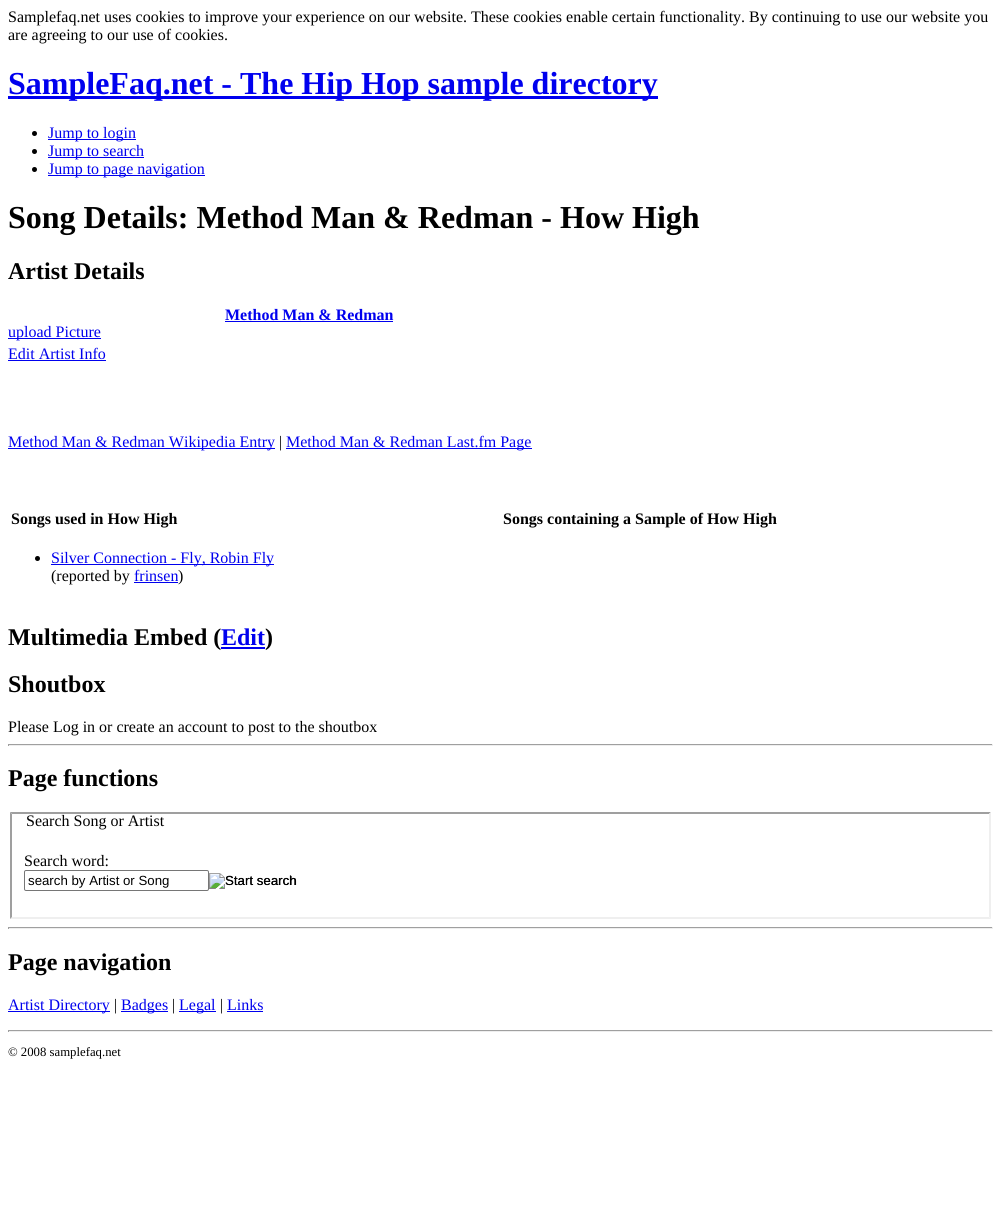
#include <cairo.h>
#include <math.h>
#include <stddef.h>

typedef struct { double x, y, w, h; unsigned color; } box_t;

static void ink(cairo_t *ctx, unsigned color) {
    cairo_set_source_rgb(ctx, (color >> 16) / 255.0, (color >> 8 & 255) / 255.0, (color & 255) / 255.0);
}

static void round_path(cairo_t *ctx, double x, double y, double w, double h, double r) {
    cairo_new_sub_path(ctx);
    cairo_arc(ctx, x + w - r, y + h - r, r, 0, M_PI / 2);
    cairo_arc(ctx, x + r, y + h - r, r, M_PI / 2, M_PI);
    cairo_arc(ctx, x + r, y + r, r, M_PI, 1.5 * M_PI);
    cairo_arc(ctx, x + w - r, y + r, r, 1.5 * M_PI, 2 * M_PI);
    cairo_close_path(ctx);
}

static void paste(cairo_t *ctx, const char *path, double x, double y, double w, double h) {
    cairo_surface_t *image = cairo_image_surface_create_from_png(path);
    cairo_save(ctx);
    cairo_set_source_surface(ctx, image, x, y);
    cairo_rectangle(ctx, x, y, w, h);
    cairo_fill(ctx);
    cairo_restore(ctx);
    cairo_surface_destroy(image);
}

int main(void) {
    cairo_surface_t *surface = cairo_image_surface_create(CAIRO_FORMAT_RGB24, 1001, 1229);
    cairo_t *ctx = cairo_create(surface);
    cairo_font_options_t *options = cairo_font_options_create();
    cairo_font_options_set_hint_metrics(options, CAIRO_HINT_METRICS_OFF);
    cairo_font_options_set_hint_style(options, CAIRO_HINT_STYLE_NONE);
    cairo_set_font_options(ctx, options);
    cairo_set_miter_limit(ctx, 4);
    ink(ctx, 0xFFFFFF);
    cairo_paint(ctx);
    cairo_select_font_face(ctx, "Liberation Serif", CAIRO_FONT_SLANT_NORMAL, CAIRO_FONT_WEIGHT_NORMAL);
    cairo_set_font_size(ctx, 16);
    ink(ctx, 0x000000);
    cairo_move_to(ctx, 8, 22);
    cairo_show_text(ctx, "Samplefaq.net uses cookies to improve your experience on our website. These cookies enable certain functionality. By continuing to use our website you");
    cairo_move_to(ctx, 8, 40);
    cairo_show_text(ctx, "are agreeing to our use of cookies.");
    ink(ctx, 0x0000EE);
    cairo_rectangle(ctx, 8, 96, 650, 3);
    cairo_fill(ctx);
    cairo_select_font_face(ctx, "Liberation Serif", CAIRO_FONT_SLANT_NORMAL, CAIRO_FONT_WEIGHT_BOLD);
    cairo_set_font_size(ctx, 32);
    cairo_move_to(ctx, 8, 94);
    cairo_show_text(ctx, "SampleFaq.net - The Hip Hop sample directory");
    ink(ctx, 0x000000);
    cairo_new_path(ctx);
    cairo_arc(ctx, 34.5, 133.5, 2.5, 0, 2 * M_PI);
    cairo_fill(ctx);
    ink(ctx, 0x0000EE);
    cairo_rectangle(ctx, 48, 139, 88, 1);
    cairo_fill(ctx);
    cairo_select_font_face(ctx, "Liberation Serif", CAIRO_FONT_SLANT_NORMAL, CAIRO_FONT_WEIGHT_NORMAL);
    cairo_set_font_size(ctx, 16);
    cairo_move_to(ctx, 48, 138);
    cairo_show_text(ctx, "Jump to login");
    ink(ctx, 0x000000);
    cairo_new_path(ctx);
    cairo_arc(ctx, 34.5, 151.5, 2.5, 0, 2 * M_PI);
    cairo_fill(ctx);
    ink(ctx, 0x0000EE);
    cairo_rectangle(ctx, 48, 157, 96, 1);
    cairo_fill(ctx);
    cairo_move_to(ctx, 48, 156);
    cairo_show_text(ctx, "Jump to search");
    ink(ctx, 0x000000);
    cairo_new_path(ctx);
    cairo_arc(ctx, 34.5, 169.5, 2.5, 0, 2 * M_PI);
    cairo_fill(ctx);
    ink(ctx, 0x0000EE);
    cairo_rectangle(ctx, 48, 175, 157, 1);
    cairo_fill(ctx);
    cairo_move_to(ctx, 48, 174);
    cairo_show_text(ctx, "Jump to page navigation");
    cairo_select_font_face(ctx, "Liberation Serif", CAIRO_FONT_SLANT_NORMAL, CAIRO_FONT_WEIGHT_BOLD);
    cairo_set_font_size(ctx, 32);
    ink(ctx, 0x000000);
    cairo_move_to(ctx, 8, 228);
    cairo_show_text(ctx, "Song Details: Method Man & Redman - How High");
    cairo_set_font_size(ctx, 24);
    cairo_move_to(ctx, 8, 279);
    cairo_show_text(ctx, "Artist Details");
    cairo_set_font_size(ctx, 16);
    ink(ctx, 0x0000EE);
    cairo_move_to(ctx, 225, 320);
    cairo_show_text(ctx, "Method Man & Redman");
    cairo_rectangle(ctx, 225, 321, 168, 1);
    cairo_fill(ctx);
    cairo_select_font_face(ctx, "Liberation Serif", CAIRO_FONT_SLANT_NORMAL, CAIRO_FONT_WEIGHT_NORMAL);
    cairo_move_to(ctx, 8, 359);
    cairo_show_text(ctx, "Edit Artist Info");
    cairo_rectangle(ctx, 8, 360, 98, 1);
    cairo_fill(ctx);
    cairo_rectangle(ctx, 8, 448, 267, 1);
    cairo_fill(ctx);
    cairo_move_to(ctx, 8, 447);
    cairo_show_text(ctx, "Method Man & Redman Wikipedia Entry");
    ink(ctx, 0x000000);
    cairo_move_to(ctx, 279, 447);
    cairo_show_text(ctx, "|");
    ink(ctx, 0x0000EE);
    cairo_rectangle(ctx, 286, 448, 246, 1);
    cairo_fill(ctx);
    cairo_move_to(ctx, 286, 447);
    cairo_show_text(ctx, "Method Man & Redman Last.fm Page");
    cairo_rectangle(ctx, 8, 338, 93, 1);
    cairo_fill(ctx);
    cairo_move_to(ctx, 8, 337);
    cairo_show_text(ctx, "upload Picture");
    cairo_select_font_face(ctx, "Liberation Serif", CAIRO_FONT_SLANT_NORMAL, CAIRO_FONT_WEIGHT_BOLD);
    ink(ctx, 0x000000);
    cairo_move_to(ctx, 11, 524);
    cairo_show_text(ctx, "Songs used in How High");
    cairo_new_path(ctx);
    cairo_arc(ctx, 37.5, 558.5, 2.5, 0, 2 * M_PI);
    cairo_fill(ctx);
    ink(ctx, 0x0000EE);
    cairo_rectangle(ctx, 51, 564, 223, 1);
    cairo_fill(ctx);
    cairo_select_font_face(ctx, "Liberation Serif", CAIRO_FONT_SLANT_NORMAL, CAIRO_FONT_WEIGHT_NORMAL);
    cairo_move_to(ctx, 51, 563);
    cairo_show_text(ctx, "Silver Connection - Fly, Robin Fly");
    ink(ctx, 0x000000);
    cairo_move_to(ctx, 51, 581);
    cairo_show_text(ctx, "(reported by");
    ink(ctx, 0x0000EE);
    cairo_move_to(ctx, 134, 581);
    cairo_show_text(ctx, "frinsen");
    cairo_rectangle(ctx, 134, 582, 44, 1);
    cairo_fill(ctx);
    ink(ctx, 0x000000);
    cairo_move_to(ctx, 178, 581);
    cairo_show_text(ctx, ")");
    cairo_select_font_face(ctx, "Liberation Serif", CAIRO_FONT_SLANT_NORMAL, CAIRO_FONT_WEIGHT_BOLD);
    cairo_move_to(ctx, 503, 524);
    cairo_show_text(ctx, "Songs containing a Sample of How High");
    cairo_set_font_size(ctx, 24);
    cairo_move_to(ctx, 8, 645);
    cairo_show_text(ctx, "Multimedia Embed (");
    ink(ctx, 0x0000EE);
    cairo_move_to(ctx, 221, 645);
    cairo_show_text(ctx, "Edit");
    cairo_rectangle(ctx, 221, 647, 44, 2);
    cairo_fill(ctx);
    ink(ctx, 0x000000);
    cairo_move_to(ctx, 265, 645);
    cairo_show_text(ctx, ")");
    cairo_move_to(ctx, 8, 692);
    cairo_show_text(ctx, "Shoutbox");
    cairo_select_font_face(ctx, "Liberation Serif", CAIRO_FONT_SLANT_NORMAL, CAIRO_FONT_WEIGHT_NORMAL);
    cairo_set_font_size(ctx, 16);
    cairo_move_to(ctx, 8, 732);
    cairo_show_text(ctx, "Please Log in or create an account to post to the shoutbox");
    {
        static const box_t items[] = {
            {8, 744, 985, 1, 0x9F9F9F},
            {992, 744, 1, 2, 0xEEEEEE},
            {8, 745, 985, 1, 0xEEEEEE},
            {8, 744, 1, 2, 0x9F9F9F},
        };
        for (size_t i = 0; i < sizeof items / sizeof *items; i++) {
            ink(ctx, items[i].color);
            cairo_rectangle(ctx, items[i].x, items[i].y, items[i].w, items[i].h);
            cairo_fill(ctx);
        }
    }
    cairo_select_font_face(ctx, "Liberation Serif", CAIRO_FONT_SLANT_NORMAL, CAIRO_FONT_WEIGHT_BOLD);
    cairo_set_font_size(ctx, 24);
    ink(ctx, 0x000000);
    cairo_move_to(ctx, 8, 786);
    cairo_show_text(ctx, "Page functions");
    ink(ctx, 0x9F9F9F);
    cairo_new_path(ctx);
    cairo_move_to(ctx, 10, 812);
    cairo_line_to(ctx, 991, 812);
    cairo_line_to(ctx, 989, 814);
    cairo_line_to(ctx, 12, 814);
    cairo_close_path(ctx);
    cairo_fill(ctx);
    ink(ctx, 0xEFEFEF);
    cairo_new_path(ctx);
    cairo_move_to(ctx, 991, 812);
    cairo_line_to(ctx, 991, 919);
    cairo_line_to(ctx, 989, 917);
    cairo_line_to(ctx, 989, 814);
    cairo_close_path(ctx);
    cairo_fill(ctx);
    cairo_new_path(ctx);
    cairo_move_to(ctx, 991, 919);
    cairo_line_to(ctx, 10, 919);
    cairo_line_to(ctx, 12, 917);
    cairo_line_to(ctx, 989, 917);
    cairo_close_path(ctx);
    cairo_fill(ctx);
    ink(ctx, 0x9F9F9F);
    cairo_new_path(ctx);
    cairo_move_to(ctx, 10, 919);
    cairo_line_to(ctx, 10, 812);
    cairo_line_to(ctx, 12, 814);
    cairo_line_to(ctx, 12, 917);
    cairo_close_path(ctx);
    cairo_fill(ctx);
    cairo_select_font_face(ctx, "Liberation Serif", CAIRO_FONT_SLANT_NORMAL, CAIRO_FONT_WEIGHT_NORMAL);
    cairo_set_font_size(ctx, 16);
    ink(ctx, 0x000000);
    cairo_move_to(ctx, 26, 826);
    cairo_show_text(ctx, "Search Song or Artist");
    cairo_move_to(ctx, 24, 866);
    cairo_show_text(ctx, "Search word:");
    round_path(ctx, 24.5, 870.5, 184, 20, 1.5);
    ink(ctx, 0x767676);
    cairo_set_line_width(ctx, 1);
    cairo_stroke(ctx);
    cairo_select_font_face(ctx, "Liberation Sans", CAIRO_FONT_SLANT_NORMAL, CAIRO_FONT_WEIGHT_NORMAL);
    cairo_set_font_size(ctx, 13.25);
    ink(ctx, 0x000000);
    cairo_move_to(ctx, 28, 885);
    cairo_show_text(ctx, "search by Artist or Song");
    paste(ctx, "media/1.png", 209, 873, 88, 16);
    cairo_move_to(ctx, 225, 885);
    cairo_show_text(ctx, "Start search");
    {
        static const box_t items[] = {
            {8, 927, 985, 1, 0x9F9F9F},
            {992, 927, 1, 2, 0xEEEEEE},
            {8, 928, 985, 1, 0xEEEEEE},
            {8, 927, 1, 2, 0x9F9F9F},
        };
        for (size_t i = 0; i < sizeof items / sizeof *items; i++) {
            ink(ctx, items[i].color);
            cairo_rectangle(ctx, items[i].x, items[i].y, items[i].w, items[i].h);
            cairo_fill(ctx);
        }
    }
    cairo_select_font_face(ctx, "Liberation Serif", CAIRO_FONT_SLANT_NORMAL, CAIRO_FONT_WEIGHT_BOLD);
    cairo_set_font_size(ctx, 24);
    ink(ctx, 0x000000);
    cairo_move_to(ctx, 8, 970);
    cairo_show_text(ctx, "Page navigation");
    ink(ctx, 0x0000EE);
    cairo_rectangle(ctx, 8, 1011, 102, 1);
    cairo_fill(ctx);
    cairo_select_font_face(ctx, "Liberation Serif", CAIRO_FONT_SLANT_NORMAL, CAIRO_FONT_WEIGHT_NORMAL);
    cairo_set_font_size(ctx, 16);
    cairo_move_to(ctx, 8, 1010);
    cairo_show_text(ctx, "Artist Directory");
    ink(ctx, 0x000000);
    cairo_move_to(ctx, 114, 1010);
    cairo_show_text(ctx, "|");
    ink(ctx, 0x0000EE);
    cairo_rectangle(ctx, 121, 1011, 47, 1);
    cairo_fill(ctx);
    cairo_move_to(ctx, 121, 1010);
    cairo_show_text(ctx, "Badges");
    ink(ctx, 0x000000);
    cairo_move_to(ctx, 172, 1010);
    cairo_show_text(ctx, "|");
    ink(ctx, 0x0000EE);
    cairo_rectangle(ctx, 179, 1011, 37, 1);
    cairo_fill(ctx);
    cairo_move_to(ctx, 179, 1010);
    cairo_show_text(ctx, "Legal");
    ink(ctx, 0x000000);
    cairo_move_to(ctx, 220, 1010);
    cairo_show_text(ctx, "|");
    ink(ctx, 0x0000EE);
    cairo_move_to(ctx, 227, 1010);
    cairo_show_text(ctx, "Links");
    {
        static const box_t items[] = {
            {227, 1011, 36, 1, 0x0000EE},
            {8, 1030, 985, 1, 0x9F9F9F},
            {992, 1030, 1, 2, 0xEEEEEE},
            {8, 1031, 985, 1, 0xEEEEEE},
            {8, 1030, 1, 2, 0x9F9F9F},
        };
        for (size_t i = 0; i < sizeof items / sizeof *items; i++) {
            ink(ctx, items[i].color);
            cairo_rectangle(ctx, items[i].x, items[i].y, items[i].w, items[i].h);
            cairo_fill(ctx);
        }
    }
    cairo_set_font_size(ctx, 12.75);
    ink(ctx, 0x000000);
    cairo_move_to(ctx, 8, 1056);
    cairo_show_text(ctx, "© 2008 samplefaq.net");
    cairo_surface_write_to_png(surface, "image.png");
    cairo_font_options_destroy(options);
    cairo_destroy(ctx);
    cairo_surface_destroy(surface);
    return 0;
}
